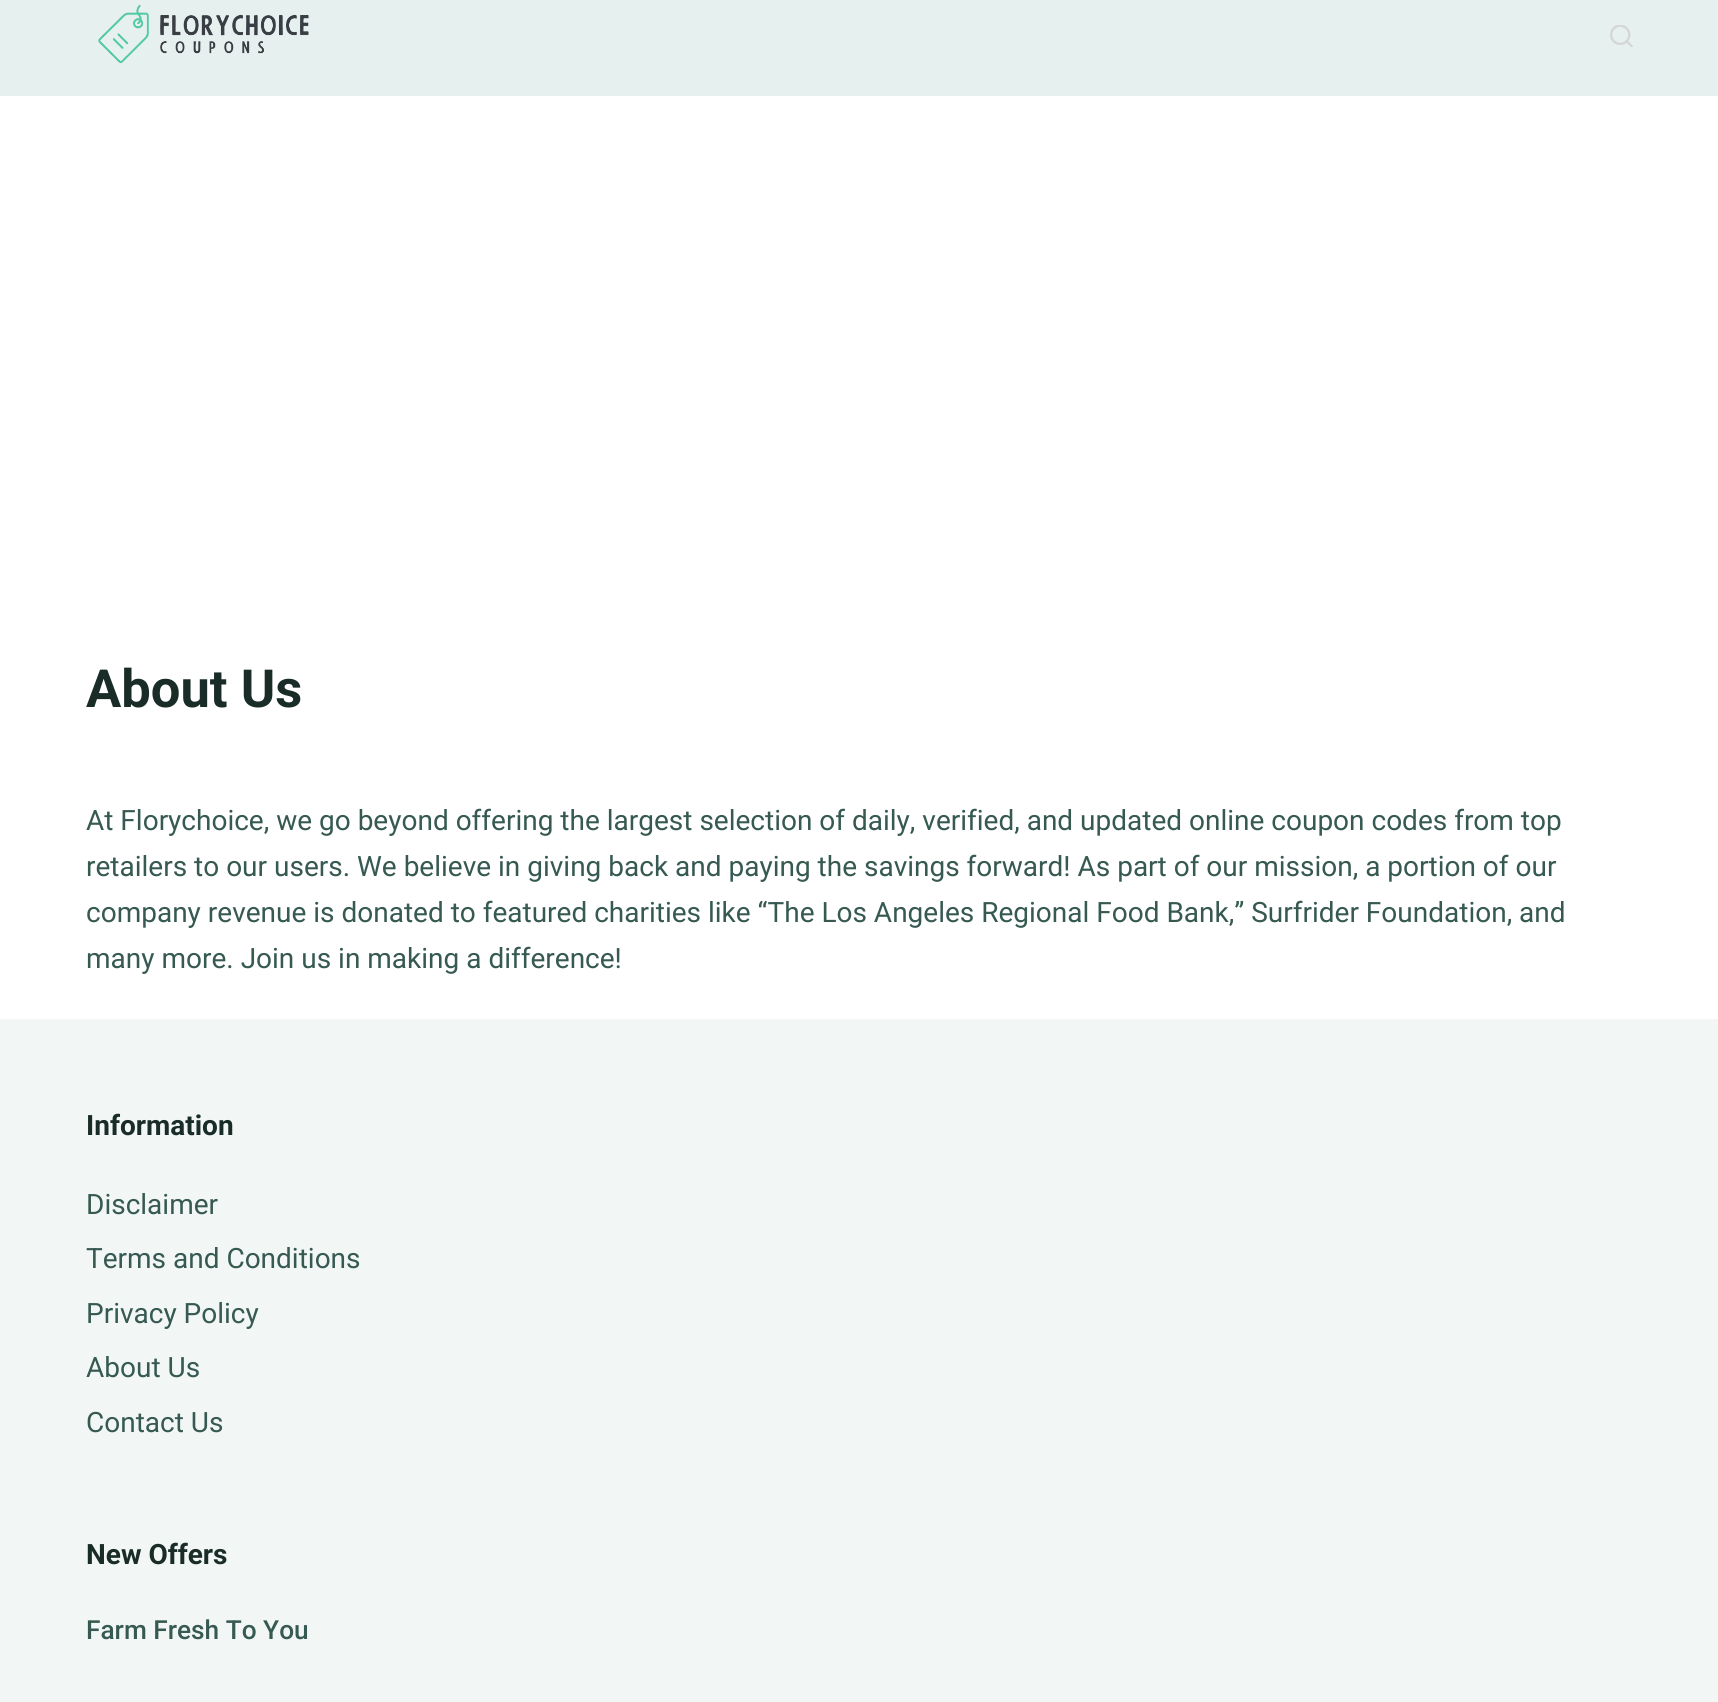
#include <cairo.h>
#include <math.h>
#include <stddef.h>

typedef struct { double x, y; const char *s; } line_t;

static void ink(cairo_t *ctx, unsigned color) {
    cairo_set_source_rgb(ctx, (color >> 16) / 255.0, (color >> 8 & 255) / 255.0, (color & 255) / 255.0);
}

static void paste(cairo_t *ctx, const char *path, double x, double y, double w, double h) {
    cairo_surface_t *image = cairo_image_surface_create_from_png(path);
    cairo_save(ctx);
    cairo_set_source_surface(ctx, image, x, y);
    cairo_rectangle(ctx, x, y, w, h);
    cairo_fill(ctx);
    cairo_restore(ctx);
    cairo_surface_destroy(image);
}

int main(void) {
    cairo_surface_t *surface = cairo_image_surface_create(CAIRO_FORMAT_RGB24, 1718, 1702);
    cairo_t *ctx = cairo_create(surface);
    cairo_font_options_t *options = cairo_font_options_create();
    cairo_font_options_set_hint_metrics(options, CAIRO_HINT_METRICS_OFF);
    cairo_font_options_set_hint_style(options, CAIRO_HINT_STYLE_NONE);
    cairo_set_font_options(ctx, options);
    cairo_set_miter_limit(ctx, 4);
    ink(ctx, 0xFFFFFF);
    cairo_paint(ctx);
    ink(ctx, 0xE6F0EE);
    cairo_rectangle(ctx, 0, 0, 1718, 96);
    cairo_fill(ctx);
    paste(ctx, "media/1.png", 98, 4, 211, 60);
    paste(ctx, "media/2.png", 1610, 25, 23, 22);
    cairo_select_font_face(ctx, "Roboto", CAIRO_FONT_SLANT_NORMAL, CAIRO_FONT_WEIGHT_BOLD);
    cairo_set_font_size(ctx, 52.5);
    ink(ctx, 0x192C27);
    cairo_move_to(ctx, 86, 707);
    cairo_show_text(ctx, "About Us");
    cairo_select_font_face(ctx, "Roboto", CAIRO_FONT_SLANT_NORMAL, CAIRO_FONT_WEIGHT_NORMAL);
    cairo_set_font_size(ctx, 28);
    ink(ctx, 0x365951);
    {
        static const line_t items[] = {
            {86, 830, "At Florychoice, we go beyond offering the largest selection of daily, verified, and updated online coupon codes from top"},
            {86, 876, "retailers to our users. We believe in giving back and paying the savings forward! As part of our mission, a portion of our"},
            {86, 922, "company revenue is donated to featured charities like “The Los Angeles Regional Food Bank,” Surfrider Foundation, and"},
            {86, 968, "many more. Join us in making a difference!"},
        };
        for (size_t i = 0; i < sizeof items / sizeof *items; i++) {
            cairo_move_to(ctx, items[i].x, items[i].y);
            cairo_show_text(ctx, items[i].s);
        }
    }
    ink(ctx, 0xF2F7F6);
    cairo_rectangle(ctx, 0, 1019, 1718, 683);
    cairo_fill(ctx);
    cairo_select_font_face(ctx, "Roboto", CAIRO_FONT_SLANT_NORMAL, CAIRO_FONT_WEIGHT_BOLD);
    ink(ctx, 0x192C27);
    cairo_move_to(ctx, 86, 1135);
    cairo_show_text(ctx, "Information");
    cairo_select_font_face(ctx, "Roboto", CAIRO_FONT_SLANT_NORMAL, CAIRO_FONT_WEIGHT_NORMAL);
    ink(ctx, 0x365951);
    {
        static const line_t items[] = {
            {86, 1214, "Disclaimer"},
            {86, 1268, "Terms and Conditions"},
            {86, 1323, "Privacy Policy"},
            {86, 1377, "About Us"},
            {86, 1432, "Contact Us"},
        };
        for (size_t i = 0; i < sizeof items / sizeof *items; i++) {
            cairo_move_to(ctx, items[i].x, items[i].y);
            cairo_show_text(ctx, items[i].s);
        }
    }
    cairo_select_font_face(ctx, "Roboto", CAIRO_FONT_SLANT_NORMAL, CAIRO_FONT_WEIGHT_BOLD);
    ink(ctx, 0x192C27);
    cairo_move_to(ctx, 86, 1564);
    cairo_show_text(ctx, "New Offers");
    cairo_select_font_face(ctx, "Roboto Medium", CAIRO_FONT_SLANT_NORMAL, CAIRO_FONT_WEIGHT_NORMAL);
    cairo_set_font_size(ctx, 26.25);
    ink(ctx, 0x365951);
    cairo_move_to(ctx, 86, 1639);
    cairo_show_text(ctx, "Farm Fresh To You");
    cairo_surface_write_to_png(surface, "image.png");
    cairo_font_options_destroy(options);
    cairo_destroy(ctx);
    cairo_surface_destroy(surface);
    return 0;
}
